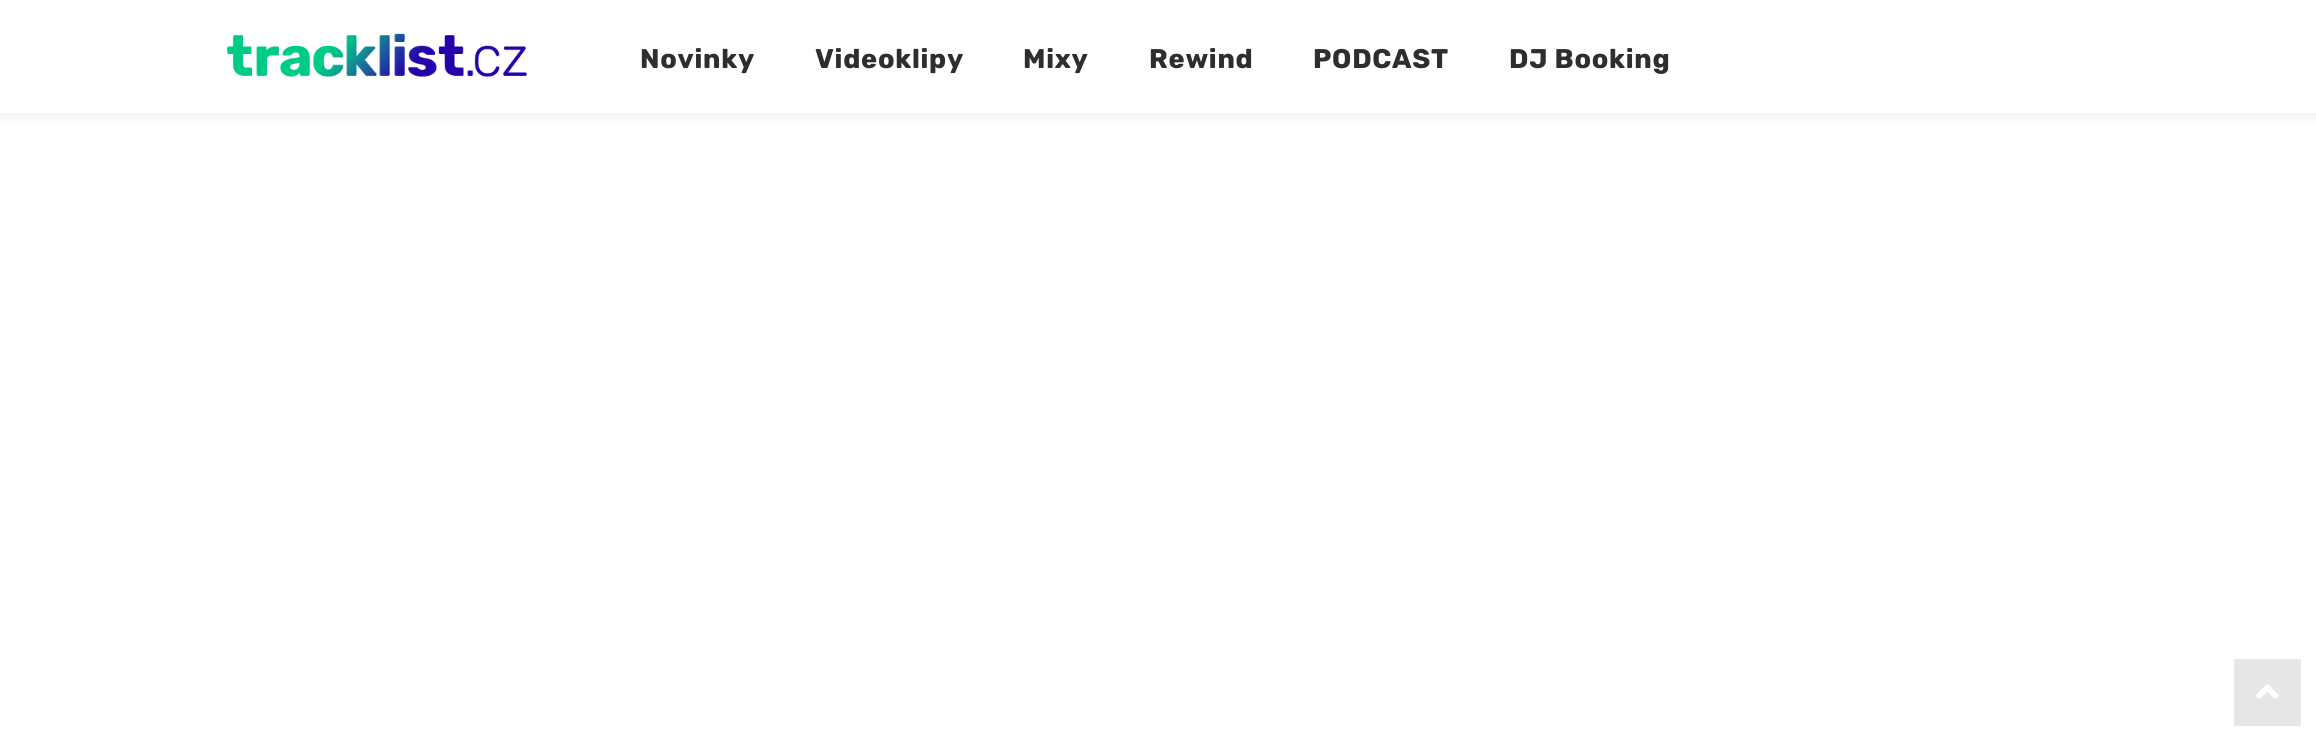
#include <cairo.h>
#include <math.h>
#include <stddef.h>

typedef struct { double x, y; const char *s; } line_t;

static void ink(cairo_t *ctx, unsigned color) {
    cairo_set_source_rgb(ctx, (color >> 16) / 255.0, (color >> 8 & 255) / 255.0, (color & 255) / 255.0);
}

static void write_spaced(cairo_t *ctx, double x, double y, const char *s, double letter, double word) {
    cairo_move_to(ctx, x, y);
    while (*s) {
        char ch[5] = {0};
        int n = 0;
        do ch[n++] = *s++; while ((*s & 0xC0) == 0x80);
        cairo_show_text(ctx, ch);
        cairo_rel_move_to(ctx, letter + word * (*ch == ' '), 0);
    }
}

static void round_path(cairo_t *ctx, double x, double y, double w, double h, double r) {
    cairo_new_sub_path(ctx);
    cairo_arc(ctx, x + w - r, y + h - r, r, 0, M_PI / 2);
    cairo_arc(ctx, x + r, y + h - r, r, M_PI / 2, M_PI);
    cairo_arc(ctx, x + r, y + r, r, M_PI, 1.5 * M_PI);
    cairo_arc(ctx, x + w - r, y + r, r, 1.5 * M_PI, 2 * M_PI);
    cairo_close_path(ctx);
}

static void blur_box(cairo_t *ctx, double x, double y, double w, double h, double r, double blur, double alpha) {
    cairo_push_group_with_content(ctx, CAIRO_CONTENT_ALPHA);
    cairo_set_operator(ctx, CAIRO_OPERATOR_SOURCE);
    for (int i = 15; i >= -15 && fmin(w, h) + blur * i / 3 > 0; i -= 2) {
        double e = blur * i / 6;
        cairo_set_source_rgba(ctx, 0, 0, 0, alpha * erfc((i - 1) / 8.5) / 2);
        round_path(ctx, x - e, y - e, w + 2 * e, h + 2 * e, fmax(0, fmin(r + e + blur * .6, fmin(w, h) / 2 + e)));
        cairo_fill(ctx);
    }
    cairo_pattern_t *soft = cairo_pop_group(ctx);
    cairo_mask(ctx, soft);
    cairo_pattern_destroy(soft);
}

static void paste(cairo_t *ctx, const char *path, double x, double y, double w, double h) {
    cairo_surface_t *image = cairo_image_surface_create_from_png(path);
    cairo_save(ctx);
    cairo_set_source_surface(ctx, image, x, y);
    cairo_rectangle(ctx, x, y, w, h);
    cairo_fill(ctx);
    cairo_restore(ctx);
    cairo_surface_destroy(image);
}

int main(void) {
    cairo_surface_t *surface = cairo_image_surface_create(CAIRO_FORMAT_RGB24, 2316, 755);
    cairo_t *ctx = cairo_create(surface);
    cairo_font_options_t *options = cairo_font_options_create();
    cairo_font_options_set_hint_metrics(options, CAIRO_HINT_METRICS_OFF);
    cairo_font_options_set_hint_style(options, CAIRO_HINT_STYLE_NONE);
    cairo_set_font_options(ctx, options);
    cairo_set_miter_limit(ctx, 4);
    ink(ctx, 0xFFFFFF);
    cairo_paint(ctx);
    ink(ctx, 0x010101);
    blur_box(ctx, 0, 0, 2316, 113, 0, 7.5, 0.1);
    ink(ctx, 0xFFFFFF);
    cairo_rectangle(ctx, 0, 0, 2316, 113);
    cairo_fill(ctx);
    paste(ctx, "media/1.png", 227, 33, 301, 44);
    cairo_select_font_face(ctx, "Rubik", CAIRO_FONT_SLANT_NORMAL, CAIRO_FONT_WEIGHT_BOLD);
    cairo_set_font_size(ctx, 27);
    ink(ctx, 0x2E2E2E);
    {
        static const line_t items[] = {
            {640, 68, "Novinky"},
            {815, 68, "Videoklipy"},
            {1023, 68, "Mixy"},
            {1149, 68, "Rewind"},
            {1313, 68, "PODCAST"},
            {1509, 68, "DJ Booking"},
        };
        for (size_t i = 0; i < sizeof items / sizeof *items; i++) {
            write_spaced(ctx, items[i].x, items[i].y, items[i].s, 0.75, 0);
        }
    }
    ink(ctx, 0xE6E6E6);
    cairo_rectangle(ctx, 2234, 659, 67, 67);
    cairo_fill(ctx);
    paste(ctx, "media/2.png", 2256, 684, 23, 15);
    cairo_surface_write_to_png(surface, "image.png");
    cairo_font_options_destroy(options);
    cairo_destroy(ctx);
    cairo_surface_destroy(surface);
    return 0;
}
